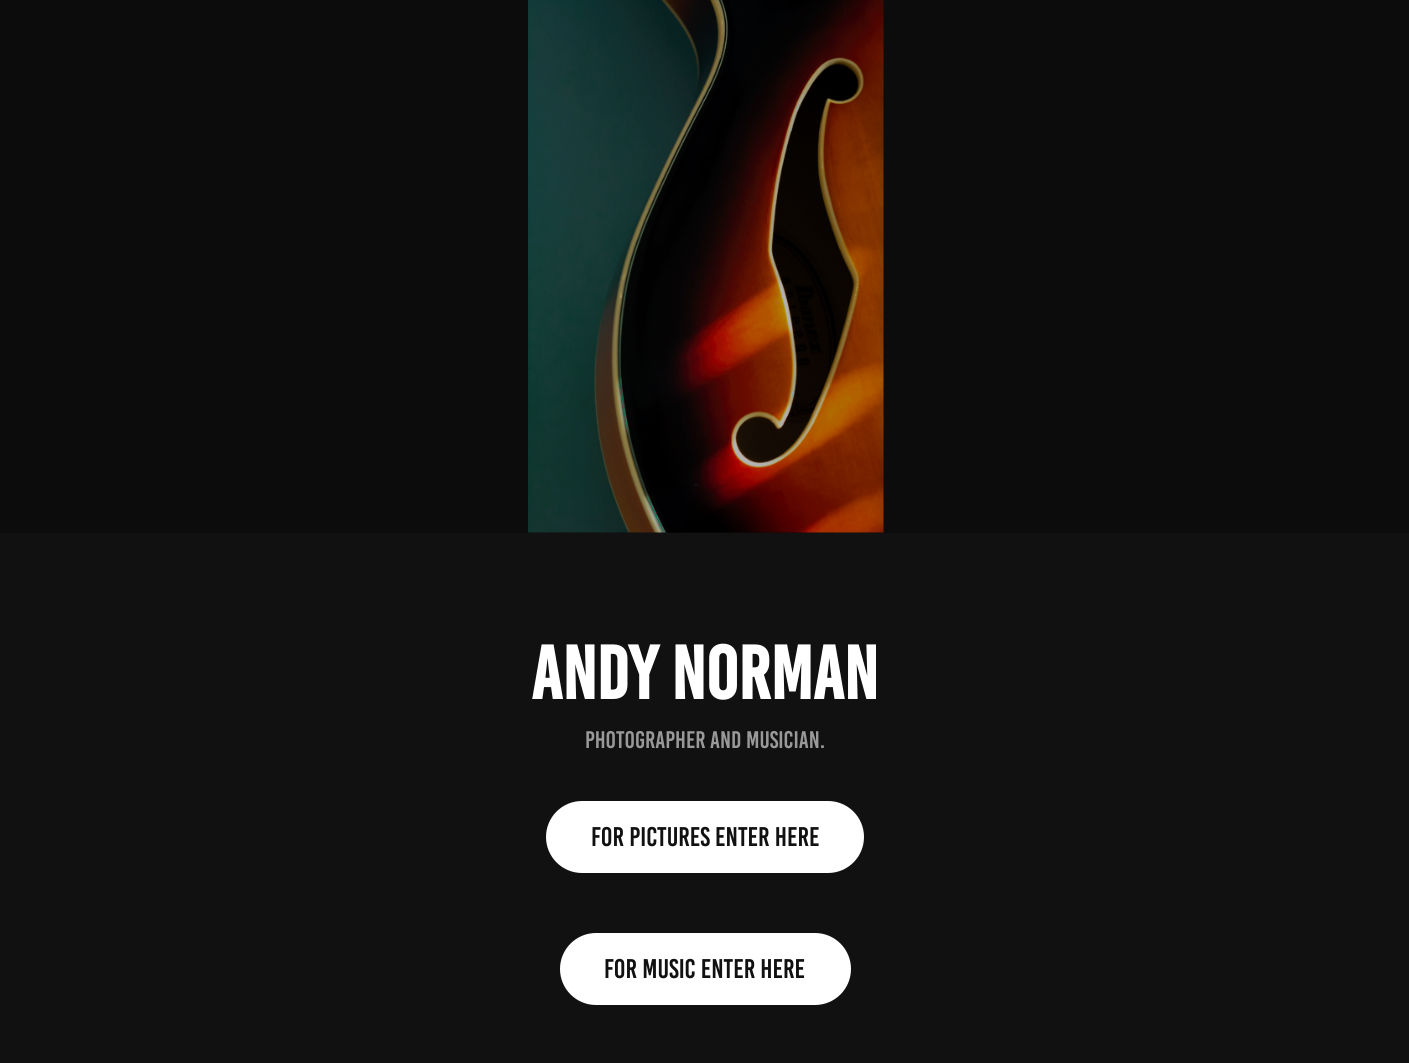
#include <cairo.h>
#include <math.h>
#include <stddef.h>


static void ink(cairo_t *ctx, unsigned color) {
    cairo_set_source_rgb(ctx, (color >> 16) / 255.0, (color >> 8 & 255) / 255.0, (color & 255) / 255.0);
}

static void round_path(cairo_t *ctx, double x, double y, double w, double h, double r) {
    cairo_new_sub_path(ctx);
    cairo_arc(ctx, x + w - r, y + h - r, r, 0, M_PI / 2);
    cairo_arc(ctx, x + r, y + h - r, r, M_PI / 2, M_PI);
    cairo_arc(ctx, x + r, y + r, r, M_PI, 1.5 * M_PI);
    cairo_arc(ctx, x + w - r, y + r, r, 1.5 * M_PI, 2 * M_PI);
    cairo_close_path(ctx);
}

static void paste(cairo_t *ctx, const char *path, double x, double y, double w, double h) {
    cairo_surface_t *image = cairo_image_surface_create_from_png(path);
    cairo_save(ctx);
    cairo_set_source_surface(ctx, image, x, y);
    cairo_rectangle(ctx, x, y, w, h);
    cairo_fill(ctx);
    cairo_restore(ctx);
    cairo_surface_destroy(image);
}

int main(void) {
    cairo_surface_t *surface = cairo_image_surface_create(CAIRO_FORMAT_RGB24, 1409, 1063);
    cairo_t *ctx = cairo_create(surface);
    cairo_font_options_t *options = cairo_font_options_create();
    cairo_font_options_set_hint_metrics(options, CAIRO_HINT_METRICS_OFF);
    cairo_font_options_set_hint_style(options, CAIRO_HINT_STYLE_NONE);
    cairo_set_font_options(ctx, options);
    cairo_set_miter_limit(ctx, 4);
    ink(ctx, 0x111111);
    cairo_paint(ctx);
    ink(ctx, 0x0C0C0C);
    cairo_rectangle(ctx, 0, 0, 1409, 533);
    cairo_fill(ctx);
    paste(ctx, "media/1.png", 528, 0, 356, 533);
    cairo_select_font_face(ctx, "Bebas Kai", CAIRO_FONT_SLANT_NORMAL, CAIRO_FONT_WEIGHT_BOLD);
    cairo_set_font_size(ctx, 75);
    ink(ctx, 0xFFFFFF);
    cairo_move_to(ctx, 531, 699);
    cairo_show_text(ctx, "andy norman");
    cairo_select_font_face(ctx, "Bebas Kai", CAIRO_FONT_SLANT_NORMAL, CAIRO_FONT_WEIGHT_NORMAL);
    cairo_set_font_size(ctx, 24);
    ink(ctx, 0x999999);
    cairo_move_to(ctx, 585, 748);
    cairo_show_text(ctx, "PHOTOGrapher and musician.");
    ink(ctx, 0xFFFFFF);
    round_path(ctx, 546, 801, 318, 72, 36);
    cairo_fill(ctx);
    cairo_set_font_size(ctx, 27);
    ink(ctx, 0x111111);
    cairo_move_to(ctx, 591, 846);
    cairo_show_text(ctx, "for pictures enter here");
    ink(ctx, 0xFFFFFF);
    round_path(ctx, 560, 933, 291, 72, 36);
    cairo_fill(ctx);
    ink(ctx, 0x111111);
    cairo_move_to(ctx, 604, 978);
    cairo_show_text(ctx, "for music enter here");
    cairo_surface_write_to_png(surface, "image.png");
    cairo_font_options_destroy(options);
    cairo_destroy(ctx);
    cairo_surface_destroy(surface);
    return 0;
}
